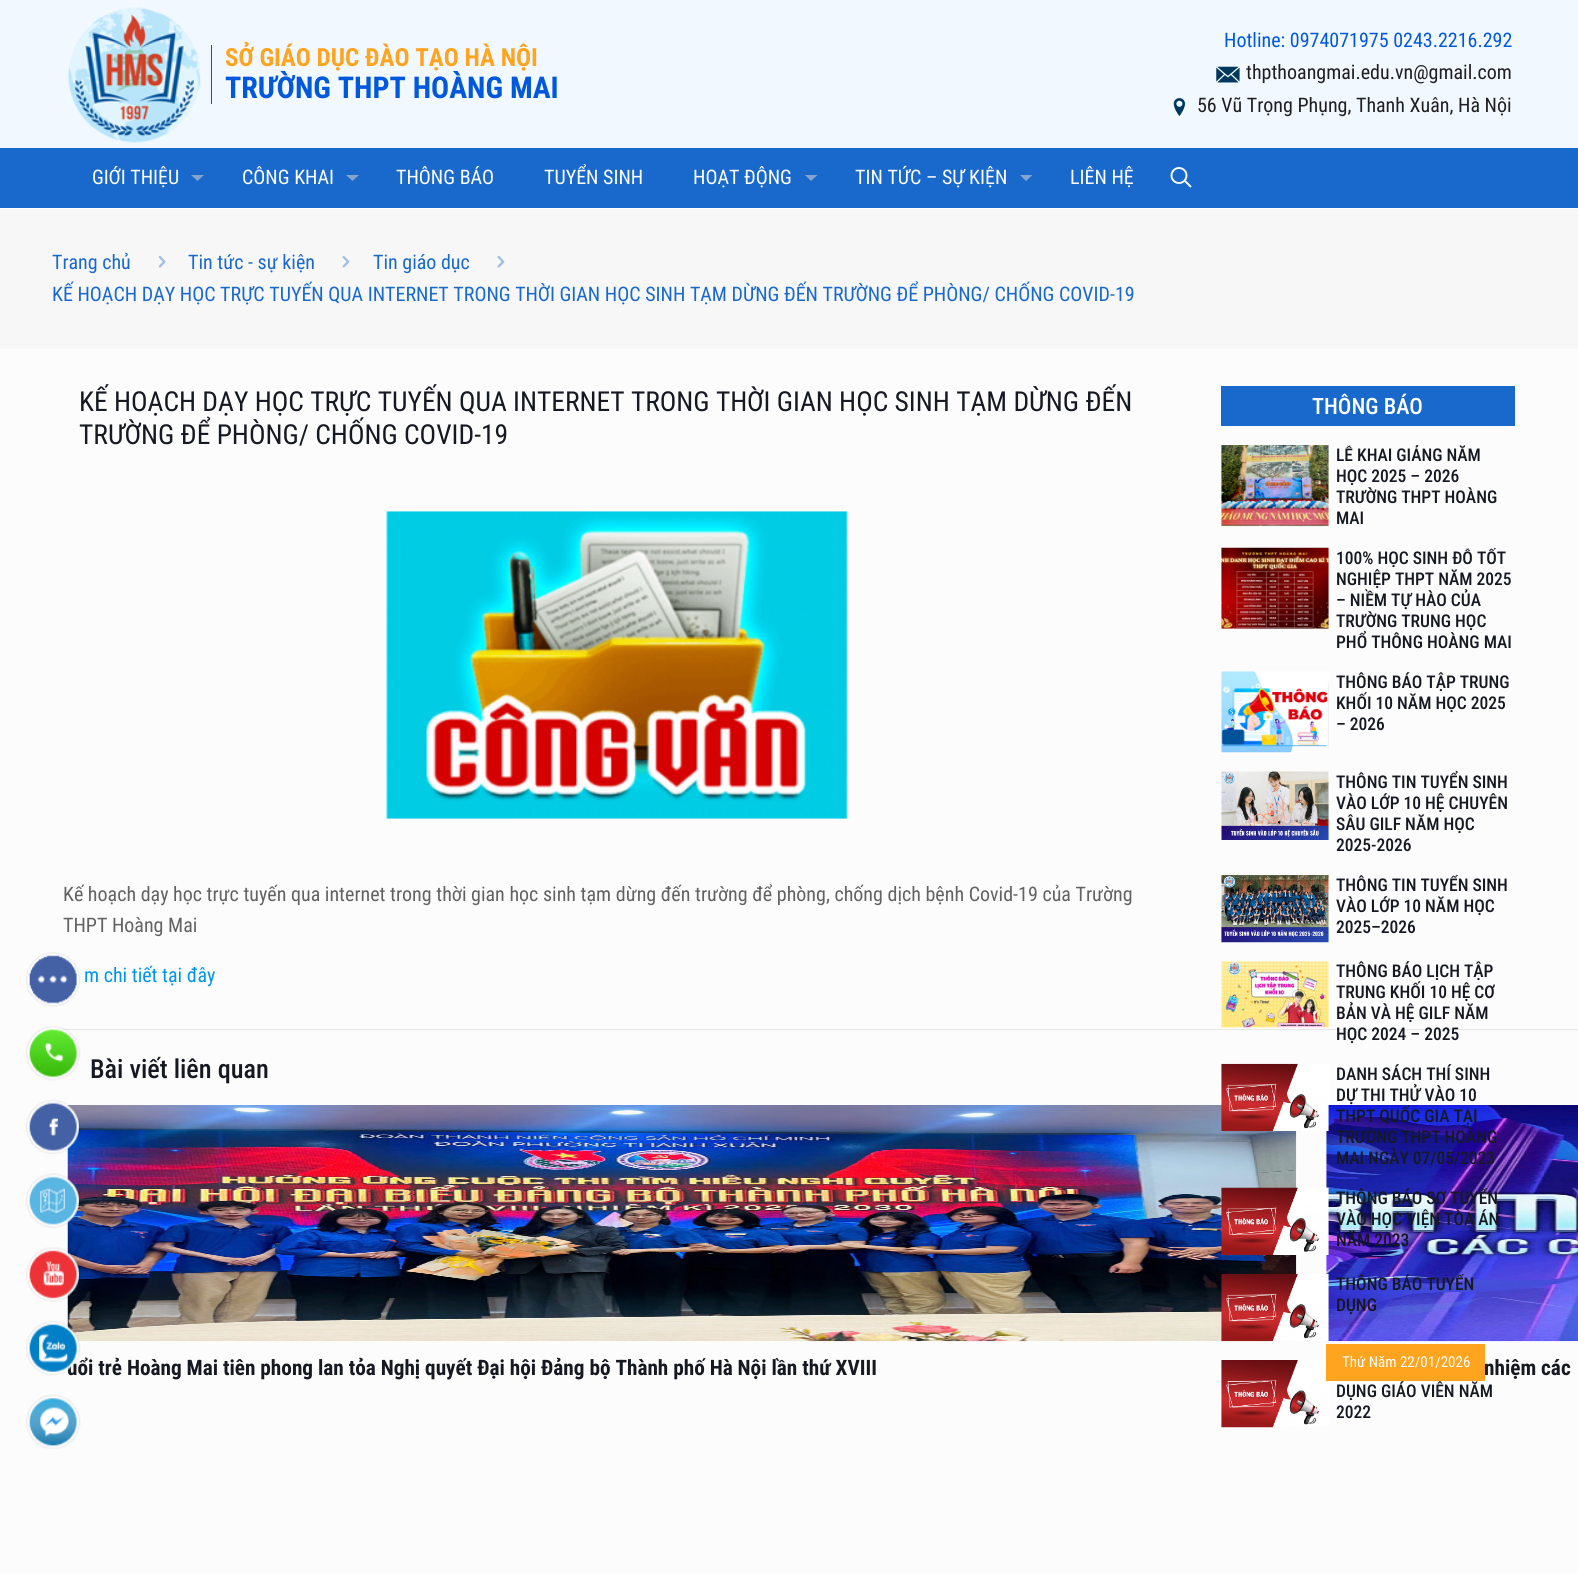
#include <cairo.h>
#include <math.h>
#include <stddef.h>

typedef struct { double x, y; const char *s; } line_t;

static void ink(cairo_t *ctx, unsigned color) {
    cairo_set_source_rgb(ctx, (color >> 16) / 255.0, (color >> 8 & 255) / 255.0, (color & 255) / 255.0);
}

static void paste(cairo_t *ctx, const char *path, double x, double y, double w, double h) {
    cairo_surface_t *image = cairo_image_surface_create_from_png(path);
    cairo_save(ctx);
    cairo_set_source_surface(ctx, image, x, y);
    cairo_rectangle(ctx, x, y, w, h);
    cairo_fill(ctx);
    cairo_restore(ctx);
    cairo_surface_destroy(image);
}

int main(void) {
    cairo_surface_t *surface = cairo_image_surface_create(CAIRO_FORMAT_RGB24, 1578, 1574);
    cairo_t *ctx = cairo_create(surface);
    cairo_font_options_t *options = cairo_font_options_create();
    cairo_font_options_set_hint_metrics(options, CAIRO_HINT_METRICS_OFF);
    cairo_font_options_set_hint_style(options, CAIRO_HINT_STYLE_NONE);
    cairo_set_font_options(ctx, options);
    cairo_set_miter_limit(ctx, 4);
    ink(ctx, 0xFCFCFC);
    cairo_paint(ctx);
    ink(ctx, 0xFFFFFF);
    cairo_rectangle(ctx, 0, 208, 1578, 1);
    cairo_fill(ctx);
    ink(ctx, 0xF2F8FF);
    cairo_rectangle(ctx, 0, 0, 1578, 148);
    cairo_fill(ctx);
    paste(ctx, "media/1.png", 67, 7, 134, 136);
    ink(ctx, 0x0058DC);
    cairo_rectangle(ctx, 211, 45, 1, 59);
    cairo_fill(ctx);
    cairo_select_font_face(ctx, "Roboto Condensed", CAIRO_FONT_SLANT_NORMAL, CAIRO_FONT_WEIGHT_BOLD);
    cairo_set_font_size(ctx, 25);
    ink(ctx, 0xFEA41E);
    cairo_move_to(ctx, 225, 66);
    cairo_show_text(ctx, "SỞ GIÁO DỤC ĐÀO TẠO HÀ NỘI");
    cairo_set_font_size(ctx, 30);
    ink(ctx, 0x0058DC);
    cairo_move_to(ctx, 225, 98);
    cairo_show_text(ctx, "TRƯỜNG THPT HOÀNG MAI");
    cairo_select_font_face(ctx, "Roboto Condensed", CAIRO_FONT_SLANT_NORMAL, CAIRO_FONT_WEIGHT_NORMAL);
    cairo_set_font_size(ctx, 20);
    cairo_move_to(ctx, 1224, 47);
    cairo_show_text(ctx, "Hotline: 0974071975 0243.2216.292");
    paste(ctx, "media/2.png", 1216, 66, 24, 17);
    ink(ctx, 0x1F1F1F);
    cairo_move_to(ctx, 1246, 79);
    cairo_show_text(ctx, "thpthoangmai.edu.vn@gmail.com");
    paste(ctx, "media/3.png", 1173, 98, 12, 18);
    cairo_move_to(ctx, 1197, 112);
    cairo_show_text(ctx, "56 Vũ Trọng Phụng, Thanh Xuân, Hà Nội");
    ink(ctx, 0x1969CD);
    cairo_rectangle(ctx, 0, 148, 1578, 60);
    cairo_fill(ctx);
    ink(ctx, 0xFFFFFF);
    cairo_move_to(ctx, 92, 184);
    cairo_show_text(ctx, "GIỚI THIỆU");
    ink(ctx, 0x84A4CC);
    cairo_new_path(ctx);
    cairo_move_to(ctx, 191, 175);
    cairo_line_to(ctx, 204, 175);
    cairo_line_to(ctx, 197.5, 181);
    cairo_close_path(ctx);
    cairo_fill(ctx);
    ink(ctx, 0xFFFFFF);
    cairo_move_to(ctx, 242, 184);
    cairo_show_text(ctx, "CÔNG KHAI");
    ink(ctx, 0x84A4CC);
    cairo_new_path(ctx);
    cairo_move_to(ctx, 346, 175);
    cairo_line_to(ctx, 359, 175);
    cairo_line_to(ctx, 352.5, 181);
    cairo_close_path(ctx);
    cairo_fill(ctx);
    ink(ctx, 0xFFFFFF);
    {
        static const line_t items[] = {
            {396, 184, "THÔNG BÁO"},
            {544, 184, "TUYỂN SINH"},
            {693, 184, "HOẠT ĐỘNG"},
        };
        for (size_t i = 0; i < sizeof items / sizeof *items; i++) {
            cairo_move_to(ctx, items[i].x, items[i].y);
            cairo_show_text(ctx, items[i].s);
        }
    }
    ink(ctx, 0x84A4CC);
    cairo_new_path(ctx);
    cairo_move_to(ctx, 805, 175);
    cairo_line_to(ctx, 817.5, 175);
    cairo_line_to(ctx, 811, 181);
    cairo_close_path(ctx);
    cairo_fill(ctx);
    ink(ctx, 0xFFFFFF);
    cairo_move_to(ctx, 855, 184);
    cairo_show_text(ctx, "TIN TỨC – SỰ KIỆN");
    ink(ctx, 0x84A4CC);
    cairo_new_path(ctx);
    cairo_move_to(ctx, 1020, 175);
    cairo_line_to(ctx, 1032.5, 175);
    cairo_line_to(ctx, 1026, 181);
    cairo_close_path(ctx);
    cairo_fill(ctx);
    ink(ctx, 0xFFFFFF);
    cairo_move_to(ctx, 1070, 184);
    cairo_show_text(ctx, "LIÊN HỆ");
    cairo_new_path(ctx);
    cairo_arc(ctx, 1179, 175.5, 7.5, 0, 2 * M_PI);
    cairo_set_line_width(ctx, 1.9);
    cairo_stroke(ctx);
    cairo_new_path(ctx);
    cairo_move_to(ctx, 1184.5, 180.5);
    cairo_line_to(ctx, 1191, 187);
    cairo_stroke(ctx);
    ink(ctx, 0xF7F7F7);
    cairo_rectangle(ctx, 0, 209, 1578, 140);
    cairo_fill(ctx);
    ink(ctx, 0x1969CD);
    cairo_move_to(ctx, 52, 269);
    cairo_show_text(ctx, "Trang chủ");
    paste(ctx, "media/4.png", 158, 256, 8, 12);
    cairo_move_to(ctx, 188, 269);
    cairo_show_text(ctx, "Tin tức - sự kiện");
    paste(ctx, "media/5.png", 342, 256, 8, 12);
    cairo_move_to(ctx, 373, 269);
    cairo_show_text(ctx, "Tin giáo dục");
    paste(ctx, "media/5.png", 497, 256, 8, 12);
    cairo_move_to(ctx, 52, 301);
    cairo_show_text(ctx, "KẾ HOẠCH DẠY HỌC TRỰC TUYẾN QUA INTERNET TRONG THỜI GIAN HỌC SINH TẠM DỪNG ĐẾN TRƯỜNG ĐỂ PHÒNG/ CHỐNG COVID-19");
    cairo_set_font_size(ctx, 27.5);
    ink(ctx, 0x161922);
    cairo_move_to(ctx, 79, 411);
    cairo_show_text(ctx, "KẾ HOẠCH DẠY HỌC TRỰC TUYẾN QUA INTERNET TRONG THỜI GIAN HỌC SINH TẠM DỪNG ĐẾN");
    cairo_move_to(ctx, 79, 444);
    cairo_show_text(ctx, "TRƯỜNG ĐỂ PHÒNG/ CHỐNG COVID-19");
    paste(ctx, "media/6.png", 386, 511, 462, 308);
    cairo_set_font_size(ctx, 20);
    ink(ctx, 0x626262);
    cairo_move_to(ctx, 63, 901);
    cairo_show_text(ctx, "Kế hoạch dạy học trực tuyến qua internet trong thời gian học sinh tạm dừng đến trường để phòng, chống dịch bệnh Covid-19 của Trường");
    cairo_move_to(ctx, 63, 932);
    cairo_show_text(ctx, "THPT Hoàng Mai");
    ink(ctx, 0x0095EB);
    cairo_move_to(ctx, 84, 982);
    cairo_show_text(ctx, "m chi tiết tại đây");
    ink(ctx, 0xE8E8E8);
    cairo_rectangle(ctx, 53, 1029, 1525, 1);
    cairo_fill(ctx);
    cairo_select_font_face(ctx, "Roboto Condensed Medium", CAIRO_FONT_SLANT_NORMAL, CAIRO_FONT_WEIGHT_NORMAL);
    cairo_set_font_size(ctx, 26.25);
    ink(ctx, 0x161922);
    cairo_move_to(ctx, 90, 1078);
    cairo_show_text(ctx, "Bài viết liên quan");
    paste(ctx, "media/7.png", 67, 1105, 1230, 237);
    cairo_select_font_face(ctx, "Roboto Condensed", CAIRO_FONT_SLANT_NORMAL, CAIRO_FONT_WEIGHT_BOLD);
    cairo_set_font_size(ctx, 21.25);
    cairo_move_to(ctx, 67, 1375);
    cairo_show_text(ctx, "uổi trẻ Hoàng Mai tiên phong lan tỏa Nghị quyết Đại hội Đảng bộ Thành phố Hà Nội lần thứ XVIII");
    paste(ctx, "media/8.png", 1326, 1105, 252, 237);
    paste(ctx, "media/18.png", 1221, 1360, 108, 68);
    ink(ctx, 0xFEA41E);
    cairo_rectangle(ctx, 1326, 1344, 159, 37);
    cairo_fill(ctx);
    cairo_select_font_face(ctx, "Roboto Condensed", CAIRO_FONT_SLANT_NORMAL, CAIRO_FONT_WEIGHT_NORMAL);
    cairo_set_font_size(ctx, 15);
    ink(ctx, 0xFFFFFF);
    cairo_move_to(ctx, 1342, 1367);
    cairo_show_text(ctx, "Thứ Năm 22/01/2026");
    cairo_select_font_face(ctx, "Roboto Condensed", CAIRO_FONT_SLANT_NORMAL, CAIRO_FONT_WEIGHT_BOLD);
    cairo_set_font_size(ctx, 21.25);
    ink(ctx, 0x161922);
    cairo_move_to(ctx, 1484, 1375);
    cairo_show_text(ctx, "nhiệm các");
    ink(ctx, 0x1969CD);
    cairo_rectangle(ctx, 1221, 386, 294, 40);
    cairo_fill(ctx);
    cairo_select_font_face(ctx, "Roboto Condensed Medium", CAIRO_FONT_SLANT_NORMAL, CAIRO_FONT_WEIGHT_NORMAL);
    cairo_set_font_size(ctx, 22.5);
    ink(ctx, 0xFFFFFF);
    cairo_move_to(ctx, 1312, 414);
    cairo_show_text(ctx, "THÔNG BÁO");
    paste(ctx, "media/9.png", 1221, 445, 108, 82);
    cairo_save(ctx);
    cairo_rectangle(ctx, 1221, 445, 294, 84);
    cairo_clip(ctx);
    cairo_set_font_size(ctx, 17.5);
    ink(ctx, 0x161922);
    cairo_move_to(ctx, 1336, 461);
    cairo_show_text(ctx, "LỄ KHAI GIẢNG NĂM");
    cairo_restore(ctx);
    cairo_set_font_size(ctx, 17.5);
    ink(ctx, 0x161922);
    {
        static const line_t items[] = {
            {1336, 482, "HỌC 2025 – 2026"},
            {1336, 503, "TRƯỜNG THPT HOÀNG"},
            {1336, 524, "MAI"},
        };
        for (size_t i = 0; i < sizeof items / sizeof *items; i++) {
            cairo_move_to(ctx, items[i].x, items[i].y);
            cairo_show_text(ctx, items[i].s);
        }
    }
    paste(ctx, "media/10.png", 1221, 547, 108, 82);
    cairo_save(ctx);
    cairo_rectangle(ctx, 1221, 548, 294, 105);
    cairo_clip(ctx);
    cairo_move_to(ctx, 1336, 564);
    cairo_show_text(ctx, "100% HỌC SINH ĐỖ TỐT");
    cairo_restore(ctx);
    {
        static const line_t items[] = {
            {1336, 585, "NGHIỆP THPT NĂM 2025"},
            {1336, 606, "– NIỀM TỰ HÀO CỦA"},
            {1336, 627, "TRƯỜNG TRUNG HỌC"},
            {1336, 648, "PHỔ THÔNG HOÀNG MAI"},
        };
        for (size_t i = 0; i < sizeof items / sizeof *items; i++) {
            cairo_move_to(ctx, items[i].x, items[i].y);
            cairo_show_text(ctx, items[i].s);
        }
    }
    paste(ctx, "media/11.png", 1221, 671, 108, 82);
    {
        static const line_t items[] = {
            {1336, 688, "THÔNG BÁO TẬP TRUNG"},
            {1336, 709, "KHỐI 10 NĂM HỌC 2025"},
            {1336, 730, "– 2026"},
        };
        for (size_t i = 0; i < sizeof items / sizeof *items; i++) {
            cairo_move_to(ctx, items[i].x, items[i].y);
            cairo_show_text(ctx, items[i].s);
        }
    }
    paste(ctx, "media/12.png", 1221, 771, 108, 69);
    {
        static const line_t items[] = {
            {1336, 788, "THÔNG TIN TUYỂN SINH"},
            {1336, 809, "VÀO LỚP 10 HỆ CHUYÊN"},
            {1336, 830, "SÂU GILF NĂM HỌC"},
            {1336, 851, "2025-2026"},
        };
        for (size_t i = 0; i < sizeof items / sizeof *items; i++) {
            cairo_move_to(ctx, items[i].x, items[i].y);
            cairo_show_text(ctx, items[i].s);
        }
    }
    paste(ctx, "media/13.png", 1221, 875, 108, 68);
    cairo_save(ctx);
    cairo_rectangle(ctx, 1221, 875, 294, 68);
    cairo_clip(ctx);
    cairo_move_to(ctx, 1336, 891);
    cairo_show_text(ctx, "THÔNG TIN TUYỂN SINH");
    cairo_restore(ctx);
    cairo_move_to(ctx, 1336, 912);
    cairo_show_text(ctx, "VÀO LỚP 10 NĂM HỌC");
    cairo_move_to(ctx, 1336, 933);
    cairo_show_text(ctx, "2025–2026");
    paste(ctx, "media/14.png", 1221, 961, 108, 67);
    {
        static const line_t items[] = {
            {1336, 977, "THÔNG BÁO LỊCH TẬP"},
            {1336, 998, "TRUNG KHỐI 10 HỆ CƠ"},
            {1336, 1019, "BẢN VÀ HỆ GILF NĂM"},
            {1336, 1040, "HỌC 2024 – 2025"},
        };
        for (size_t i = 0; i < sizeof items / sizeof *items; i++) {
            cairo_move_to(ctx, items[i].x, items[i].y);
            cairo_show_text(ctx, items[i].s);
        }
    }
    paste(ctx, "media/15.png", 1221, 1063, 108, 69);
    {
        static const line_t items[] = {
            {1336, 1080, "DANH SÁCH THÍ SINH"},
            {1336, 1101, "DỰ THI THỬ VÀO 10"},
            {1336, 1122, "THPT QUỐC GIA TẠI"},
            {1336, 1143, "TRƯỜNG THPT HOÀNG"},
            {1336, 1164, "MAI NGÀY 07/05/2023"},
        };
        for (size_t i = 0; i < sizeof items / sizeof *items; i++) {
            cairo_move_to(ctx, items[i].x, items[i].y);
            cairo_show_text(ctx, items[i].s);
        }
    }
    paste(ctx, "media/16.png", 1221, 1187, 108, 68);
    cairo_save(ctx);
    cairo_rectangle(ctx, 1221, 1188, 294, 67);
    cairo_clip(ctx);
    cairo_move_to(ctx, 1336, 1204);
    cairo_show_text(ctx, "THÔNG BÁO SƠ TUYỂN");
    cairo_restore(ctx);
    cairo_move_to(ctx, 1336, 1225);
    cairo_show_text(ctx, "VÀO HỌC VIỆN TÒA ÁN");
    cairo_move_to(ctx, 1336, 1246);
    cairo_show_text(ctx, "NĂM 2023");
    paste(ctx, "media/17.png", 1221, 1273, 108, 69);
    cairo_save(ctx);
    cairo_rectangle(ctx, 1221, 1274, 294, 67);
    cairo_clip(ctx);
    cairo_move_to(ctx, 1336, 1290);
    cairo_show_text(ctx, "THÔNG BÁO TUYỂN");
    cairo_restore(ctx);
    {
        static const line_t items[] = {
            {1336, 1311, "DỤNG"},
            {1336, 1397, "DỤNG GIÁO VIÊN NĂM"},
            {1336, 1418, "2022"},
        };
        for (size_t i = 0; i < sizeof items / sizeof *items; i++) {
            cairo_move_to(ctx, items[i].x, items[i].y);
            cairo_show_text(ctx, items[i].s);
        }
    }
    paste(ctx, "media/19.png", 26, 952, 55, 55);
    paste(ctx, "media/20.png", 26, 1026, 55, 55);
    paste(ctx, "media/21.png", 26, 1099, 54, 55);
    paste(ctx, "media/22.png", 26, 1173, 54, 55);
    paste(ctx, "media/23.png", 26, 1247, 54, 55);
    paste(ctx, "media/24.png", 26, 1321, 55, 55);
    paste(ctx, "media/25.png", 26, 1394, 55, 55);
    cairo_surface_write_to_png(surface, "image.png");
    cairo_font_options_destroy(options);
    cairo_destroy(ctx);
    cairo_surface_destroy(surface);
    return 0;
}
